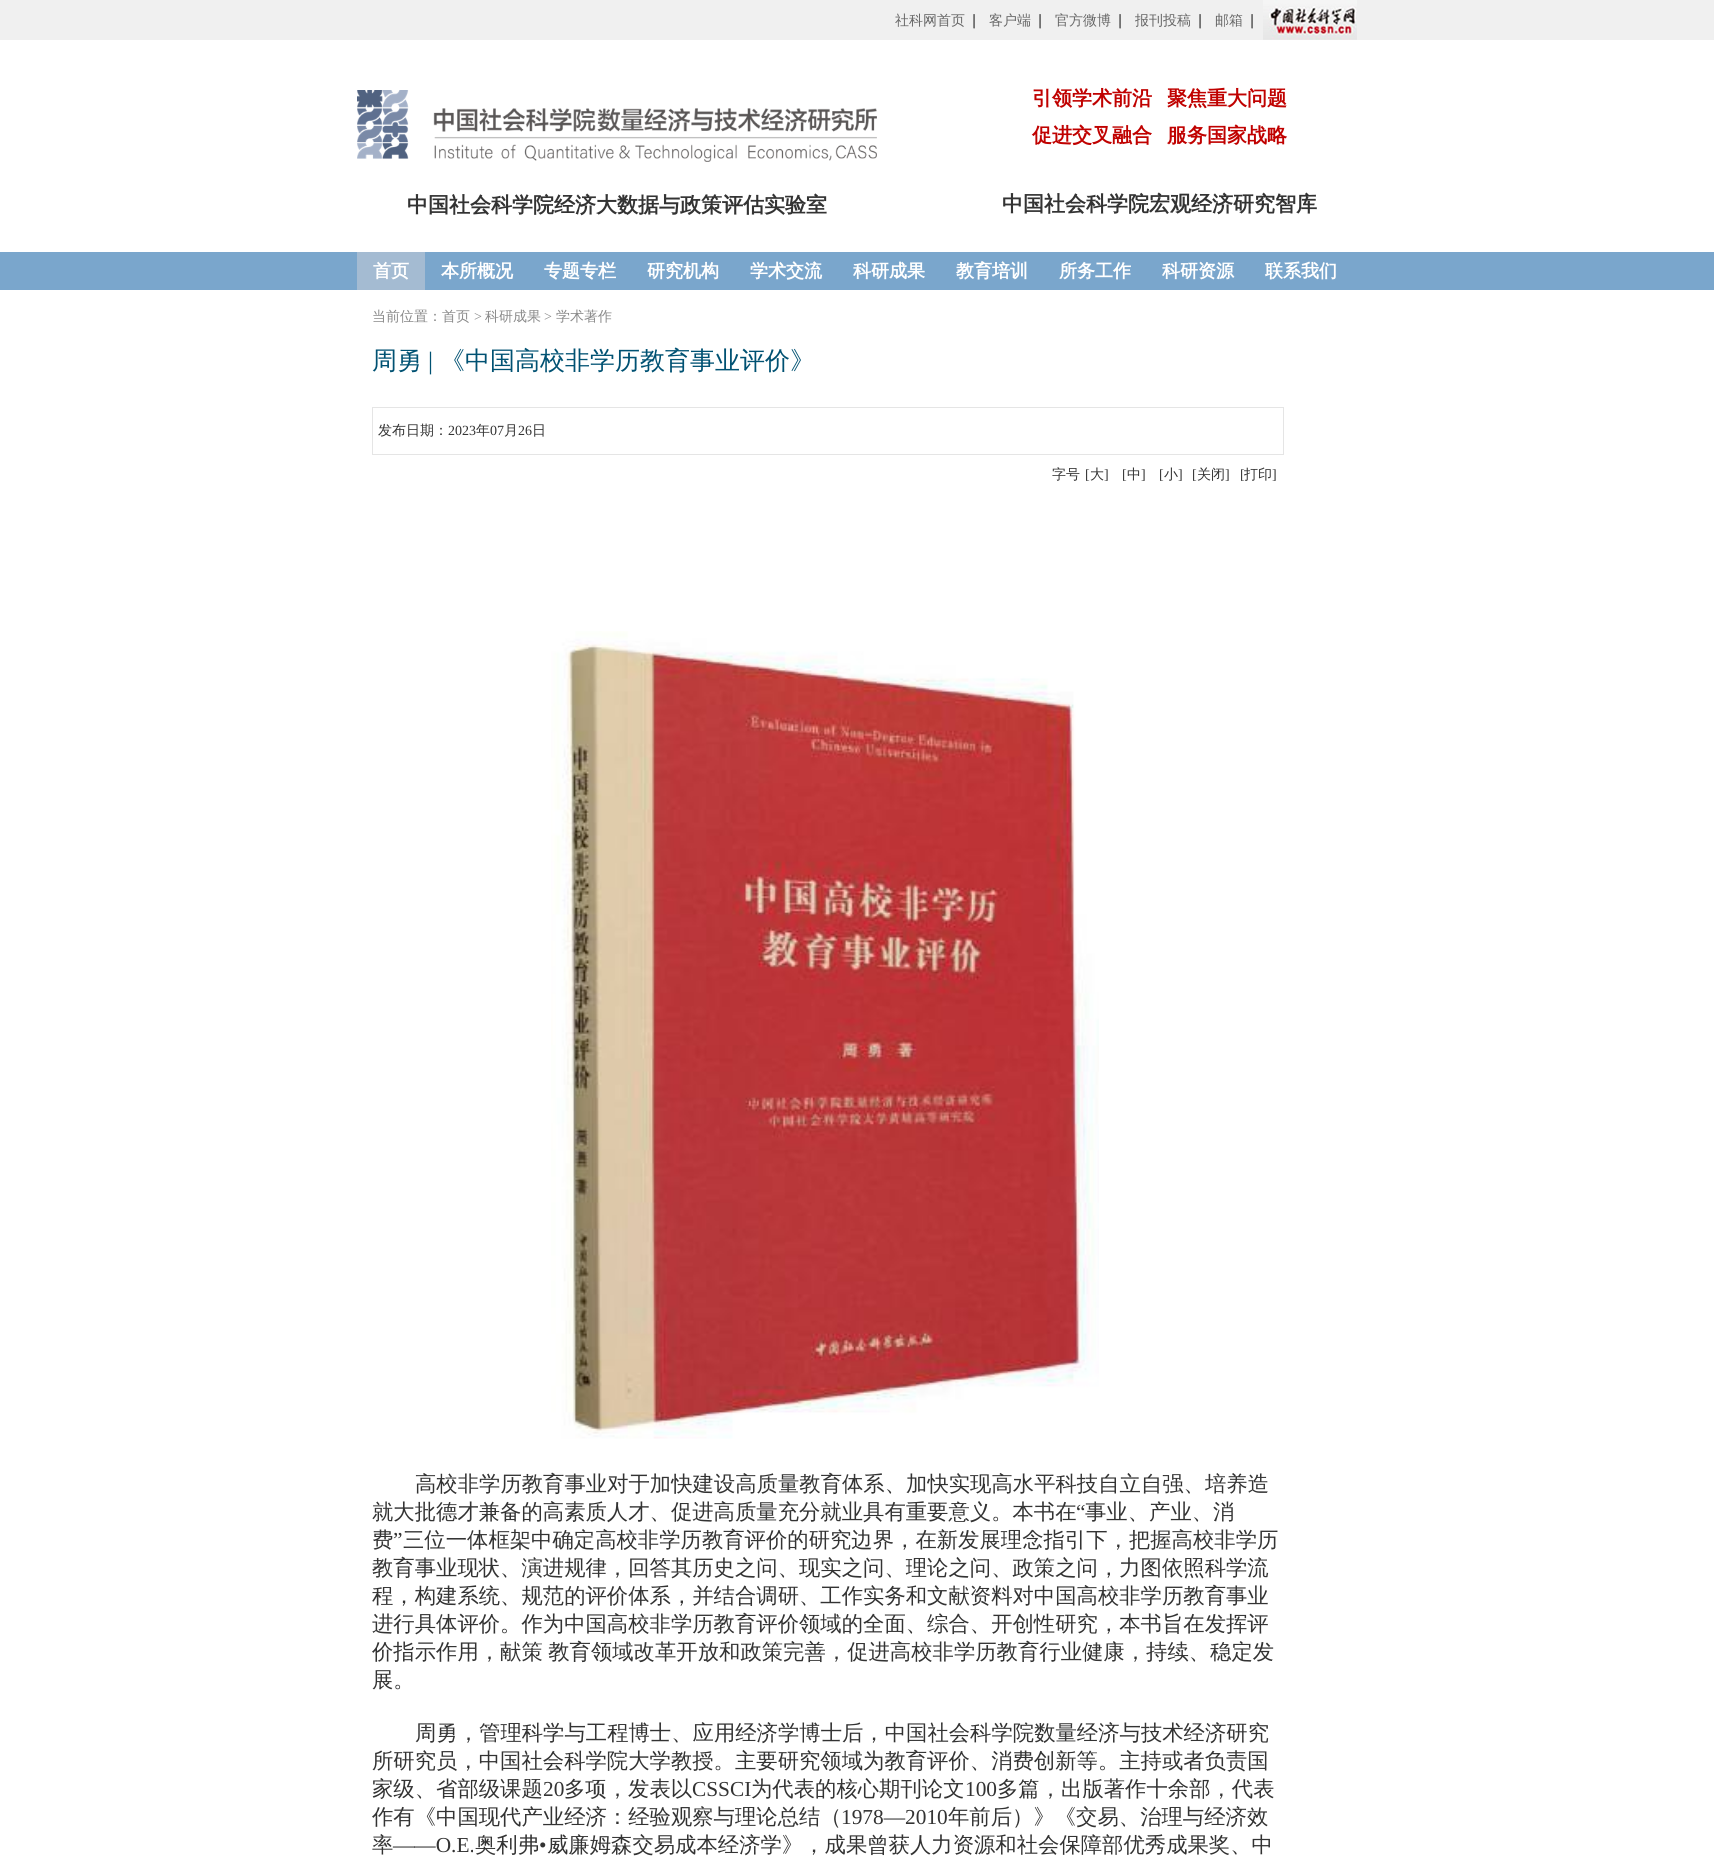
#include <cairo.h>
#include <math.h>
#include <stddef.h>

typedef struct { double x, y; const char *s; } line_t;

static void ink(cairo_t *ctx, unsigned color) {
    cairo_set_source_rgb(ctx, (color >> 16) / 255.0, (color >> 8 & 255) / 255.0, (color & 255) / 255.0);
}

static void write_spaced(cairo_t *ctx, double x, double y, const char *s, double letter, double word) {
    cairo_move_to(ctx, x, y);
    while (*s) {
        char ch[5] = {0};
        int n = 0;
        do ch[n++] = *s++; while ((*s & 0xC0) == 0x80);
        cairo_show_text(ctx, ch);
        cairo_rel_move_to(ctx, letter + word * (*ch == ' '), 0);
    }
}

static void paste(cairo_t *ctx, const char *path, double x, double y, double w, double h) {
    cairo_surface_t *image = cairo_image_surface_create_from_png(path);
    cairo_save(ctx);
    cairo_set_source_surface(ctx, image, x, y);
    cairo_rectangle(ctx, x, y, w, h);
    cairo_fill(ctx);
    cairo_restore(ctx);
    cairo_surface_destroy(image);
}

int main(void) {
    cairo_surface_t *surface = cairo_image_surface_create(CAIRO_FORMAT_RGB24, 1714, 1860);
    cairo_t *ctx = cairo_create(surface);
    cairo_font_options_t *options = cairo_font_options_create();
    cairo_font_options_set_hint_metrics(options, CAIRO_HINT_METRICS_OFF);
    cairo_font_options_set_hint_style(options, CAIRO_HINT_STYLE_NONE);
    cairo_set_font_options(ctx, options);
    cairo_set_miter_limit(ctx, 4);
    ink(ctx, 0xFFFFFF);
    cairo_paint(ctx);
    ink(ctx, 0xF0F0F0);
    cairo_rectangle(ctx, 0, 0, 1714, 40);
    cairo_fill(ctx);
    paste(ctx, "media/1.png", 973, 14, 2, 15);
    cairo_select_font_face(ctx, "WenQuanYi Zen Hei Medium", CAIRO_FONT_SLANT_NORMAL, CAIRO_FONT_WEIGHT_NORMAL);
    cairo_set_font_size(ctx, 14);
    ink(ctx, 0x666666);
    cairo_move_to(ctx, 895, 25);
    cairo_show_text(ctx, "社科网首页");
    paste(ctx, "media/1.png", 1039, 14, 2, 15);
    cairo_move_to(ctx, 989, 25);
    cairo_show_text(ctx, "客户端");
    paste(ctx, "media/1.png", 1119, 14, 2, 15);
    cairo_move_to(ctx, 1055, 25);
    cairo_show_text(ctx, "官方微博");
    paste(ctx, "media/1.png", 1199, 14, 2, 15);
    cairo_move_to(ctx, 1135, 25);
    cairo_show_text(ctx, "报刊投稿");
    paste(ctx, "media/1.png", 1251, 14, 2, 15);
    cairo_move_to(ctx, 1215, 25);
    cairo_show_text(ctx, "邮箱");
    paste(ctx, "media/2.png", 1263, 0, 94, 40);
    paste(ctx, "media/3.png", 357, 90, 520, 72);
    cairo_select_font_face(ctx, "WenQuanYi Zen Hei", CAIRO_FONT_SLANT_NORMAL, CAIRO_FONT_WEIGHT_BOLD);
    cairo_set_font_size(ctx, 21);
    ink(ctx, 0x333333);
    cairo_move_to(ctx, 407, 212);
    cairo_show_text(ctx, "中国社会科学院经济大数据与政策评估实验室");
    cairo_set_font_size(ctx, 20);
    ink(ctx, 0xC00100);
    {
        static const line_t items[] = {
            {1032, 105, "引领学术前沿"},
            {1167, 105, "聚焦重大问题"},
            {1032, 142, "促进交叉融合"},
            {1167, 142, "服务国家战略"},
        };
        for (size_t i = 0; i < sizeof items / sizeof *items; i++) {
            cairo_move_to(ctx, items[i].x, items[i].y);
            cairo_show_text(ctx, items[i].s);
        }
    }
    cairo_set_font_size(ctx, 21);
    ink(ctx, 0x333333);
    cairo_move_to(ctx, 1002, 211);
    cairo_show_text(ctx, "中国社会科学院宏观经济研究智库");
    ink(ctx, 0x7AA6CC);
    cairo_rectangle(ctx, 0, 252, 1714, 38);
    cairo_fill(ctx);
    ink(ctx, 0xA4BBD2);
    cairo_rectangle(ctx, 357, 252, 68, 38);
    cairo_fill(ctx);
    cairo_set_font_size(ctx, 18);
    ink(ctx, 0xFFFFFF);
    {
        static const line_t items[] = {
            {373, 277, "首页"},
            {441, 277, "本所概况"},
            {544, 277, "专题专栏"},
            {647, 277, "研究机构"},
            {750, 277, "学术交流"},
            {853, 277, "科研成果"},
            {956, 277, "教育培训"},
            {1059, 277, "所务工作"},
            {1162, 277, "科研资源"},
            {1265, 277, "联系我们"},
        };
        for (size_t i = 0; i < sizeof items / sizeof *items; i++) {
            cairo_move_to(ctx, items[i].x, items[i].y);
            cairo_show_text(ctx, items[i].s);
        }
    }
    cairo_select_font_face(ctx, "WenQuanYi Zen Hei Medium", CAIRO_FONT_SLANT_NORMAL, CAIRO_FONT_WEIGHT_NORMAL);
    cairo_set_font_size(ctx, 14);
    ink(ctx, 0x898989);
    cairo_move_to(ctx, 372, 321);
    cairo_show_text(ctx, "当前位置：首页");
    cairo_select_font_face(ctx, "Liberation Serif", CAIRO_FONT_SLANT_NORMAL, CAIRO_FONT_WEIGHT_NORMAL);
    cairo_move_to(ctx, 474, 321);
    cairo_show_text(ctx, ">");
    cairo_select_font_face(ctx, "WenQuanYi Zen Hei Medium", CAIRO_FONT_SLANT_NORMAL, CAIRO_FONT_WEIGHT_NORMAL);
    cairo_move_to(ctx, 485, 321);
    cairo_show_text(ctx, "科研成果");
    cairo_select_font_face(ctx, "Liberation Serif", CAIRO_FONT_SLANT_NORMAL, CAIRO_FONT_WEIGHT_NORMAL);
    cairo_move_to(ctx, 544, 321);
    cairo_show_text(ctx, ">");
    cairo_select_font_face(ctx, "WenQuanYi Zen Hei Medium", CAIRO_FONT_SLANT_NORMAL, CAIRO_FONT_WEIGHT_NORMAL);
    cairo_move_to(ctx, 556, 321);
    cairo_show_text(ctx, "学术著作");
    cairo_set_font_size(ctx, 25);
    ink(ctx, 0x005172);
    cairo_move_to(ctx, 372, 369);
    cairo_show_text(ctx, "周勇");
    cairo_select_font_face(ctx, "Liberation Serif", CAIRO_FONT_SLANT_NORMAL, CAIRO_FONT_WEIGHT_NORMAL);
    cairo_move_to(ctx, 428, 369);
    cairo_show_text(ctx, "|");
    cairo_select_font_face(ctx, "WenQuanYi Zen Hei Medium", CAIRO_FONT_SLANT_NORMAL, CAIRO_FONT_WEIGHT_NORMAL);
    cairo_move_to(ctx, 440, 369);
    cairo_show_text(ctx, "《中国高校非学历教育事业评价》");
    cairo_rectangle(ctx, 372.5, 407.5, 911, 47);
    ink(ctx, 0xE5E5E5);
    cairo_set_line_width(ctx, 1);
    cairo_stroke(ctx);
    cairo_set_font_size(ctx, 14);
    ink(ctx, 0x333333);
    cairo_move_to(ctx, 378, 435);
    cairo_show_text(ctx, "发布日期：");
    cairo_select_font_face(ctx, "Liberation Serif", CAIRO_FONT_SLANT_NORMAL, CAIRO_FONT_WEIGHT_NORMAL);
    cairo_move_to(ctx, 448, 435);
    cairo_show_text(ctx, "2023");
    cairo_select_font_face(ctx, "WenQuanYi Zen Hei Medium", CAIRO_FONT_SLANT_NORMAL, CAIRO_FONT_WEIGHT_NORMAL);
    cairo_move_to(ctx, 476, 435);
    cairo_show_text(ctx, "年");
    cairo_select_font_face(ctx, "Liberation Serif", CAIRO_FONT_SLANT_NORMAL, CAIRO_FONT_WEIGHT_NORMAL);
    cairo_move_to(ctx, 490, 435);
    cairo_show_text(ctx, "07");
    cairo_select_font_face(ctx, "WenQuanYi Zen Hei Medium", CAIRO_FONT_SLANT_NORMAL, CAIRO_FONT_WEIGHT_NORMAL);
    cairo_move_to(ctx, 504, 435);
    cairo_show_text(ctx, "月");
    cairo_select_font_face(ctx, "Liberation Serif", CAIRO_FONT_SLANT_NORMAL, CAIRO_FONT_WEIGHT_NORMAL);
    cairo_move_to(ctx, 518, 435);
    cairo_show_text(ctx, "26");
    cairo_select_font_face(ctx, "WenQuanYi Zen Hei Medium", CAIRO_FONT_SLANT_NORMAL, CAIRO_FONT_WEIGHT_NORMAL);
    cairo_move_to(ctx, 532, 435);
    cairo_show_text(ctx, "日");
    cairo_move_to(ctx, 1052, 479);
    cairo_show_text(ctx, "字号");
    cairo_select_font_face(ctx, "Liberation Serif", CAIRO_FONT_SLANT_NORMAL, CAIRO_FONT_WEIGHT_NORMAL);
    cairo_move_to(ctx, 1085, 479);
    cairo_show_text(ctx, "[");
    cairo_select_font_face(ctx, "WenQuanYi Zen Hei Medium", CAIRO_FONT_SLANT_NORMAL, CAIRO_FONT_WEIGHT_NORMAL);
    cairo_move_to(ctx, 1090, 479);
    cairo_show_text(ctx, "大");
    cairo_select_font_face(ctx, "Liberation Serif", CAIRO_FONT_SLANT_NORMAL, CAIRO_FONT_WEIGHT_NORMAL);
    cairo_move_to(ctx, 1104, 479);
    cairo_show_text(ctx, "]");
    cairo_move_to(ctx, 1122, 479);
    cairo_show_text(ctx, "[");
    cairo_select_font_face(ctx, "WenQuanYi Zen Hei Medium", CAIRO_FONT_SLANT_NORMAL, CAIRO_FONT_WEIGHT_NORMAL);
    cairo_move_to(ctx, 1127, 479);
    cairo_show_text(ctx, "中");
    cairo_select_font_face(ctx, "Liberation Serif", CAIRO_FONT_SLANT_NORMAL, CAIRO_FONT_WEIGHT_NORMAL);
    cairo_move_to(ctx, 1141, 479);
    cairo_show_text(ctx, "]");
    cairo_move_to(ctx, 1159, 479);
    cairo_show_text(ctx, "[");
    cairo_select_font_face(ctx, "WenQuanYi Zen Hei Medium", CAIRO_FONT_SLANT_NORMAL, CAIRO_FONT_WEIGHT_NORMAL);
    cairo_move_to(ctx, 1164, 479);
    cairo_show_text(ctx, "小");
    cairo_select_font_face(ctx, "Liberation Serif", CAIRO_FONT_SLANT_NORMAL, CAIRO_FONT_WEIGHT_NORMAL);
    cairo_move_to(ctx, 1178, 479);
    cairo_show_text(ctx, "]");
    cairo_move_to(ctx, 1192, 479);
    cairo_show_text(ctx, "[");
    cairo_select_font_face(ctx, "WenQuanYi Zen Hei Medium", CAIRO_FONT_SLANT_NORMAL, CAIRO_FONT_WEIGHT_NORMAL);
    cairo_move_to(ctx, 1197, 479);
    cairo_show_text(ctx, "关闭");
    cairo_select_font_face(ctx, "Liberation Serif", CAIRO_FONT_SLANT_NORMAL, CAIRO_FONT_WEIGHT_NORMAL);
    cairo_move_to(ctx, 1225, 479);
    cairo_show_text(ctx, "]");
    cairo_move_to(ctx, 1240, 479);
    cairo_show_text(ctx, "[");
    cairo_select_font_face(ctx, "WenQuanYi Zen Hei Medium", CAIRO_FONT_SLANT_NORMAL, CAIRO_FONT_WEIGHT_NORMAL);
    cairo_move_to(ctx, 1244, 479);
    cairo_show_text(ctx, "打印");
    cairo_select_font_face(ctx, "Liberation Serif", CAIRO_FONT_SLANT_NORMAL, CAIRO_FONT_WEIGHT_NORMAL);
    cairo_move_to(ctx, 1272, 479);
    cairo_show_text(ctx, "]");
    paste(ctx, "media/4.png", 551, 631, 548, 808);
    cairo_select_font_face(ctx, "WenQuanYi Zen Hei Medium", CAIRO_FONT_SLANT_NORMAL, CAIRO_FONT_WEIGHT_NORMAL);
    cairo_set_font_size(ctx, 21.35);
    cairo_move_to(ctx, 415, 1491);
    cairo_show_text(ctx, "高校非学历教育事业对于加快建设高质量教育体系、加快实现高水平科技自立自强、培养造");
    cairo_move_to(ctx, 372, 1519);
    cairo_show_text(ctx, "就大批德才兼备的高素质人才、促进高质量充分就业具有重要意义。本书在");
    cairo_select_font_face(ctx, "Liberation Serif", CAIRO_FONT_SLANT_NORMAL, CAIRO_FONT_WEIGHT_NORMAL);
    cairo_move_to(ctx, 1076, 1519);
    cairo_show_text(ctx, "“");
    cairo_select_font_face(ctx, "WenQuanYi Zen Hei Medium", CAIRO_FONT_SLANT_NORMAL, CAIRO_FONT_WEIGHT_NORMAL);
    cairo_move_to(ctx, 1085, 1519);
    cairo_show_text(ctx, "事业、产业、消");
    cairo_move_to(ctx, 372, 1547);
    cairo_show_text(ctx, "费");
    cairo_select_font_face(ctx, "Liberation Serif", CAIRO_FONT_SLANT_NORMAL, CAIRO_FONT_WEIGHT_NORMAL);
    cairo_move_to(ctx, 393, 1547);
    cairo_show_text(ctx, "”");
    cairo_select_font_face(ctx, "WenQuanYi Zen Hei Medium", CAIRO_FONT_SLANT_NORMAL, CAIRO_FONT_WEIGHT_NORMAL);
    {
        static const line_t items[] = {
            {403, 1547, "三位一体框架中确定高校非学历教育评价的研究边界，在新发展理念指引下，把握高校非学历"},
            {372, 1575, "教育事业现状、演进规律，回答其历史之问、现实之问、理论之问、政策之问，力图依照科学流"},
            {372, 1603, "程，构建系统、规范的评价体系，并结合调研、工作实务和文献资料对中国高校非学历教育事业"},
            {372, 1631, "进行具体评价。作为中国高校非学历教育评价领域的全面、综合、开创性研究，本书旨在发挥评"},
        };
        for (size_t i = 0; i < sizeof items / sizeof *items; i++) {
            cairo_move_to(ctx, items[i].x, items[i].y);
            cairo_show_text(ctx, items[i].s);
        }
    }
    write_spaced(ctx, 372, 1659, "价指示作用，献策 教育领域改革开放和政策完善，促进高校非学历教育行业健康，持续、稳定发", 0, -1);
    {
        static const line_t items[] = {
            {372, 1687, "展。"},
            {415, 1740, "周勇，管理科学与工程博士、应用经济学博士后，中国社会科学院数量经济与技术经济研究"},
            {372, 1768, "所研究员，中国社会科学院大学教授。主要研究领域为教育评价、消费创新等。主持或者负责国"},
            {372, 1796, "家级、省部级课题"},
        };
        for (size_t i = 0; i < sizeof items / sizeof *items; i++) {
            cairo_move_to(ctx, items[i].x, items[i].y);
            cairo_show_text(ctx, items[i].s);
        }
    }
    cairo_select_font_face(ctx, "Liberation Serif", CAIRO_FONT_SLANT_NORMAL, CAIRO_FONT_WEIGHT_NORMAL);
    cairo_move_to(ctx, 543, 1796);
    cairo_show_text(ctx, "20");
    cairo_select_font_face(ctx, "WenQuanYi Zen Hei Medium", CAIRO_FONT_SLANT_NORMAL, CAIRO_FONT_WEIGHT_NORMAL);
    cairo_move_to(ctx, 564, 1796);
    cairo_show_text(ctx, "多项，发表以");
    cairo_select_font_face(ctx, "Liberation Serif", CAIRO_FONT_SLANT_NORMAL, CAIRO_FONT_WEIGHT_NORMAL);
    cairo_move_to(ctx, 692, 1796);
    cairo_show_text(ctx, "CSSCI");
    cairo_select_font_face(ctx, "WenQuanYi Zen Hei Medium", CAIRO_FONT_SLANT_NORMAL, CAIRO_FONT_WEIGHT_NORMAL);
    cairo_move_to(ctx, 751, 1796);
    cairo_show_text(ctx, "为代表的核心期刊论文");
    cairo_select_font_face(ctx, "Liberation Serif", CAIRO_FONT_SLANT_NORMAL, CAIRO_FONT_WEIGHT_NORMAL);
    cairo_move_to(ctx, 965, 1796);
    cairo_show_text(ctx, "100");
    cairo_select_font_face(ctx, "WenQuanYi Zen Hei Medium", CAIRO_FONT_SLANT_NORMAL, CAIRO_FONT_WEIGHT_NORMAL);
    cairo_move_to(ctx, 997, 1796);
    cairo_show_text(ctx, "多篇，出版著作十余部，代表");
    cairo_move_to(ctx, 372, 1824);
    cairo_show_text(ctx, "作有《中国现代产业经济：经验观察与理论总结（");
    cairo_select_font_face(ctx, "Liberation Serif", CAIRO_FONT_SLANT_NORMAL, CAIRO_FONT_WEIGHT_NORMAL);
    cairo_move_to(ctx, 841, 1824);
    cairo_show_text(ctx, "1978—2010");
    cairo_select_font_face(ctx, "WenQuanYi Zen Hei Medium", CAIRO_FONT_SLANT_NORMAL, CAIRO_FONT_WEIGHT_NORMAL);
    cairo_move_to(ctx, 948, 1824);
    cairo_show_text(ctx, "年前后）》《交易、治理与经济效");
    cairo_move_to(ctx, 372, 1852);
    cairo_show_text(ctx, "率");
    cairo_select_font_face(ctx, "Liberation Serif", CAIRO_FONT_SLANT_NORMAL, CAIRO_FONT_WEIGHT_NORMAL);
    cairo_move_to(ctx, 393, 1852);
    cairo_show_text(ctx, "——O.E.");
    cairo_select_font_face(ctx, "WenQuanYi Zen Hei Medium", CAIRO_FONT_SLANT_NORMAL, CAIRO_FONT_WEIGHT_NORMAL);
    cairo_move_to(ctx, 475, 1852);
    cairo_show_text(ctx, "奥利弗");
    cairo_select_font_face(ctx, "Liberation Serif", CAIRO_FONT_SLANT_NORMAL, CAIRO_FONT_WEIGHT_NORMAL);
    cairo_move_to(ctx, 539, 1852);
    cairo_show_text(ctx, "•");
    cairo_select_font_face(ctx, "WenQuanYi Zen Hei Medium", CAIRO_FONT_SLANT_NORMAL, CAIRO_FONT_WEIGHT_NORMAL);
    cairo_move_to(ctx, 547, 1852);
    cairo_show_text(ctx, "威廉姆森交易成本经济学》，成果曾获人力资源和社会保障部优秀成果奖、中");
    cairo_surface_write_to_png(surface, "image.png");
    cairo_font_options_destroy(options);
    cairo_destroy(ctx);
    cairo_surface_destroy(surface);
    return 0;
}
